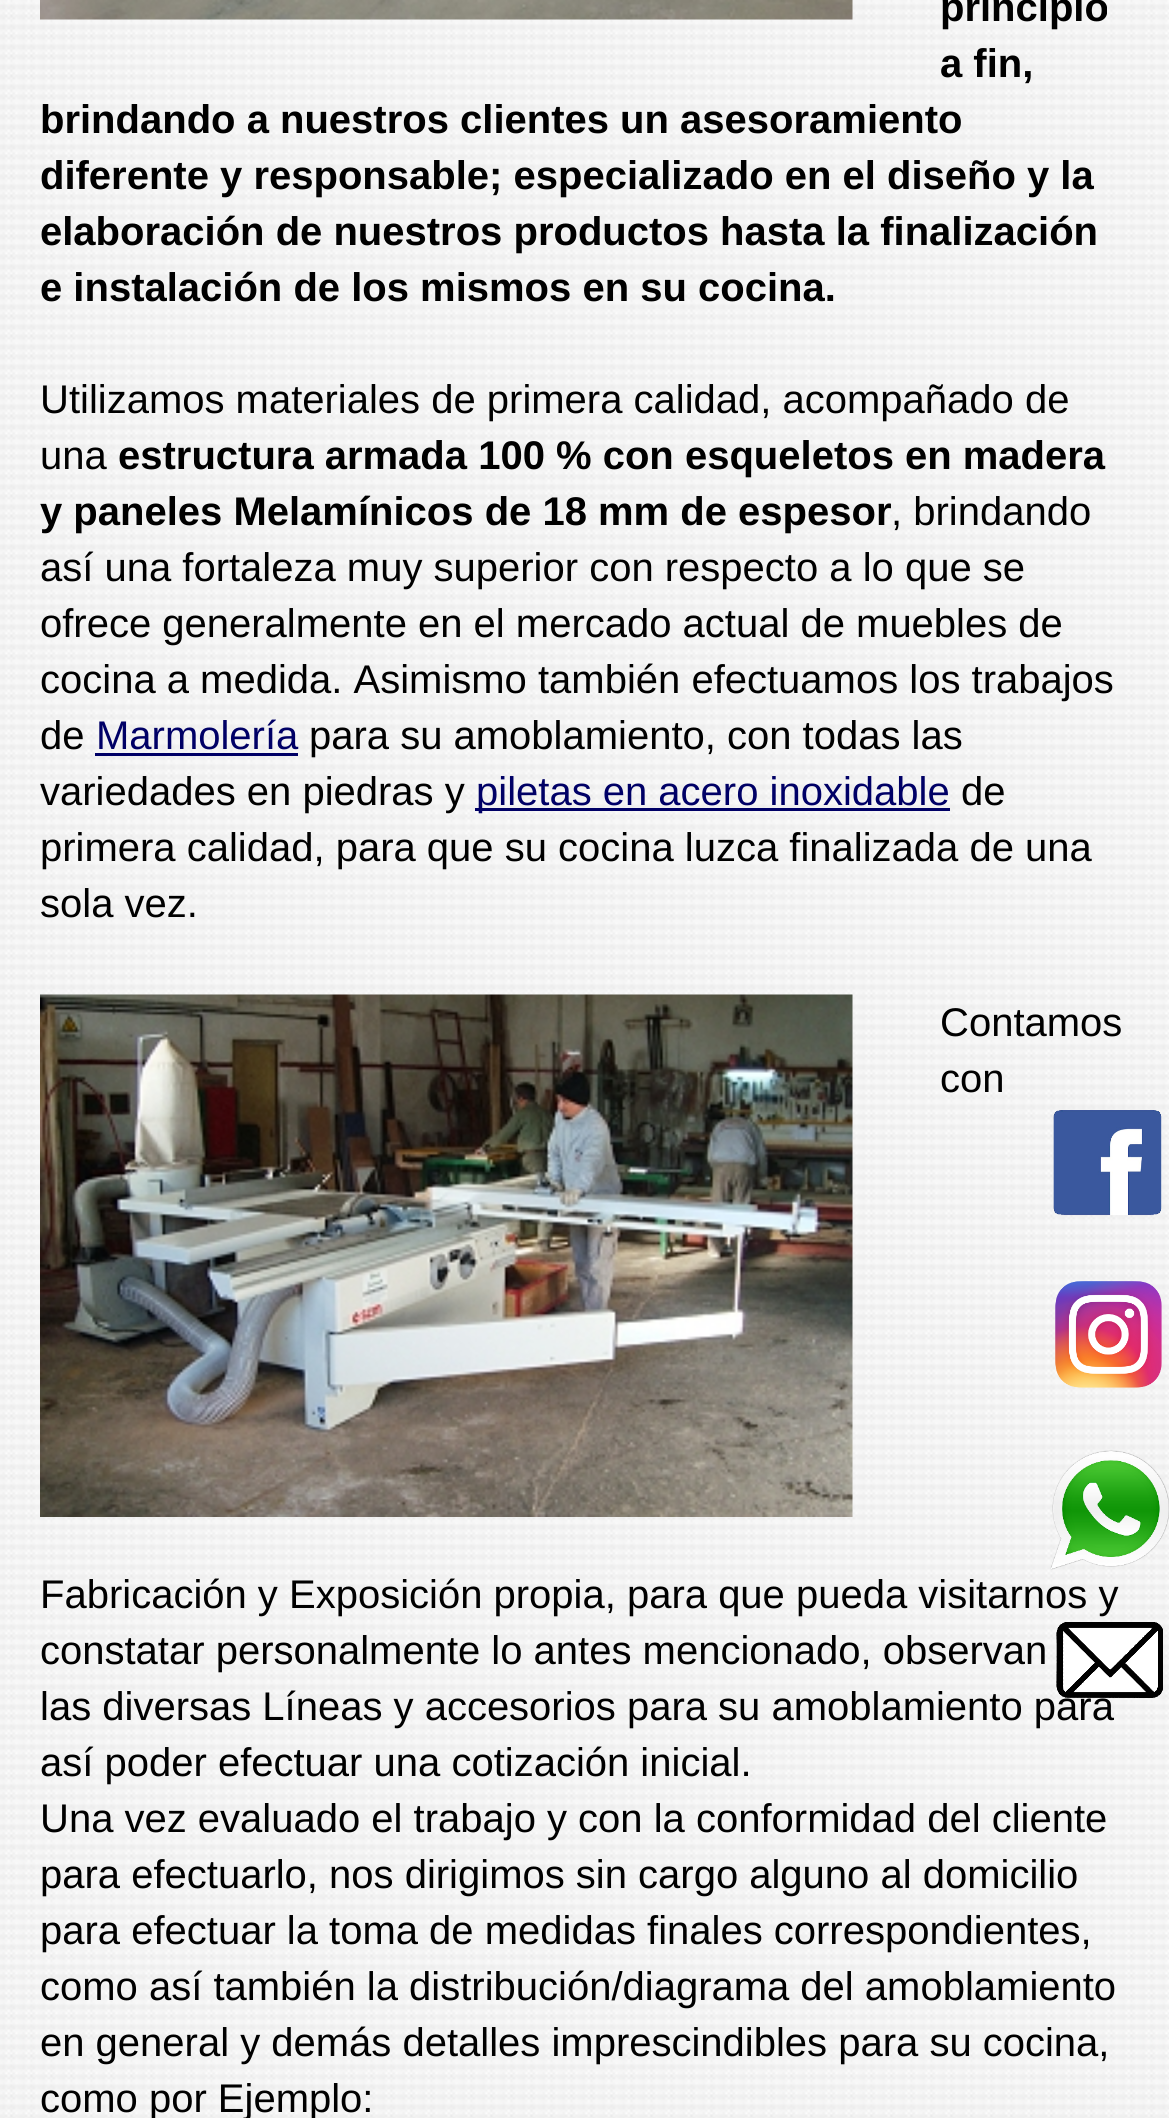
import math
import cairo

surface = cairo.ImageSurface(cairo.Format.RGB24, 1169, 2118)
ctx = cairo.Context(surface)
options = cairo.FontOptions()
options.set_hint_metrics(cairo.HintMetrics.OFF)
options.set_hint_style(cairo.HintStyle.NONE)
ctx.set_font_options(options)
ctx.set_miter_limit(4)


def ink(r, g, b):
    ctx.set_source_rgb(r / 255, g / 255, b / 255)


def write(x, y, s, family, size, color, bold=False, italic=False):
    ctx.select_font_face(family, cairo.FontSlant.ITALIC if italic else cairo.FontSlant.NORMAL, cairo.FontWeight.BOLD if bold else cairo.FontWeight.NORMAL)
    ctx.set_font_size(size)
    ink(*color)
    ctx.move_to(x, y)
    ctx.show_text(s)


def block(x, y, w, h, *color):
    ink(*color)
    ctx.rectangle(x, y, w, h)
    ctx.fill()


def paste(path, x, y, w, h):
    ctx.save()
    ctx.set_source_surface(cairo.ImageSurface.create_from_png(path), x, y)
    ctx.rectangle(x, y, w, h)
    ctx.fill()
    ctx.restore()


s1 = dict(family="Liberation Sans", size=40, color=(0, 0, 0), bold=True)
s2 = dict(family="Liberation Sans", size=40, color=(0, 0, 0))
s3 = dict(family="Liberation Sans", size=40, color=(0, 0, 102))

ink(255, 255, 255)
ctx.paint()
paste("pic1.png", 0, 0, 1169, 2118)
paste("pic2.png", 40, 0, 813, 20)
write(940, 21, "principio", **s1)
write(940, 77, "a fin,", **s1)
write(40, 133, "brindando a nuestros clientes un asesoramiento", **s1)
write(40, 189, "diferente y responsable; especializado en el diseño y la", **s1)
write(40, 245, "elaboración de nuestros productos hasta la finalización", **s1)
write(40, 301, "e instalación de los mismos en su cocina.", **s1)
write(40, 413, "Utilizamos materiales de primera calidad, acompañado de", **s2)
write(40, 469, "una", **s2)
write(118, 469, "estructura armada 100 % con esqueletos en madera", **s1)
write(40, 525, "y paneles Melamínicos de 18 mm de espesor", **s1)
write(891, 525, ", brindando", **s2)
write(40, 581, "así una fortaleza muy superior con respecto a lo que se", **s2)
write(40, 637, "ofrece generalmente en el mercado actual de muebles de", **s2)
write(40, 693, "cocina a medida. Asimismo también efectuamos los trabajos", **s2)
write(40, 749, "de", **s2)
write(96, 749, "Marmolería", **s3)
block(95, 753, 203, 3, 0, 0, 102)
write(309, 749, "para su amoblamiento, con todas las", **s2)
write(40, 805, "variedades en piedras y", **s2)
block(475, 808, 475, 3, 0, 0, 102)
write(476, 805, "piletas en acero inoxidable", **s3)
write(961, 805, "de", **s2)
write(40, 861, "primera calidad, para que su cocina luzca finalizada de una", **s2)
write(40, 917, "sola vez.", **s2)
paste("pic3.png", 40, 994, 813, 523)
write(940, 1036, "Contamos", **s2)
write(940, 1092, "con", **s2)
write(40, 1608, "Fabricación y Exposición propia, para que pueda visitarnos y", **s2)
write(40, 1664, "constatar personalmente lo antes mencionado, observan", **s2)
write(40, 1720, "las diversas Líneas y accesorios para su amoblamiento para", **s2)
write(40, 1776, "así poder efectuar una cotización inicial.", **s2)
write(40, 1832, "Una vez evaluado el trabajo y con la conformidad del cliente", **s2)
write(40, 1888, "para efectuarlo, nos dirigimos sin cargo alguno al domicilio", **s2)
write(40, 1944, "para efectuar la toma de medidas finales correspondientes,", **s2)
write(40, 2000, "como así también la distribución/diagrama del amoblamiento", **s2)
write(40, 2056, "en general y demás detalles imprescindibles para su cocina,", **s2)
write(40, 2112, "como por Ejemplo:", **s2)
paste("pic4.png", 1053, 1110, 109, 106)
paste("pic5.png", 1055, 1281, 107, 107)
paste("pic6.png", 1050, 1450, 119, 120)
paste("pic7.png", 1056, 1622, 107, 76)
surface.write_to_png("screenshot.png")
